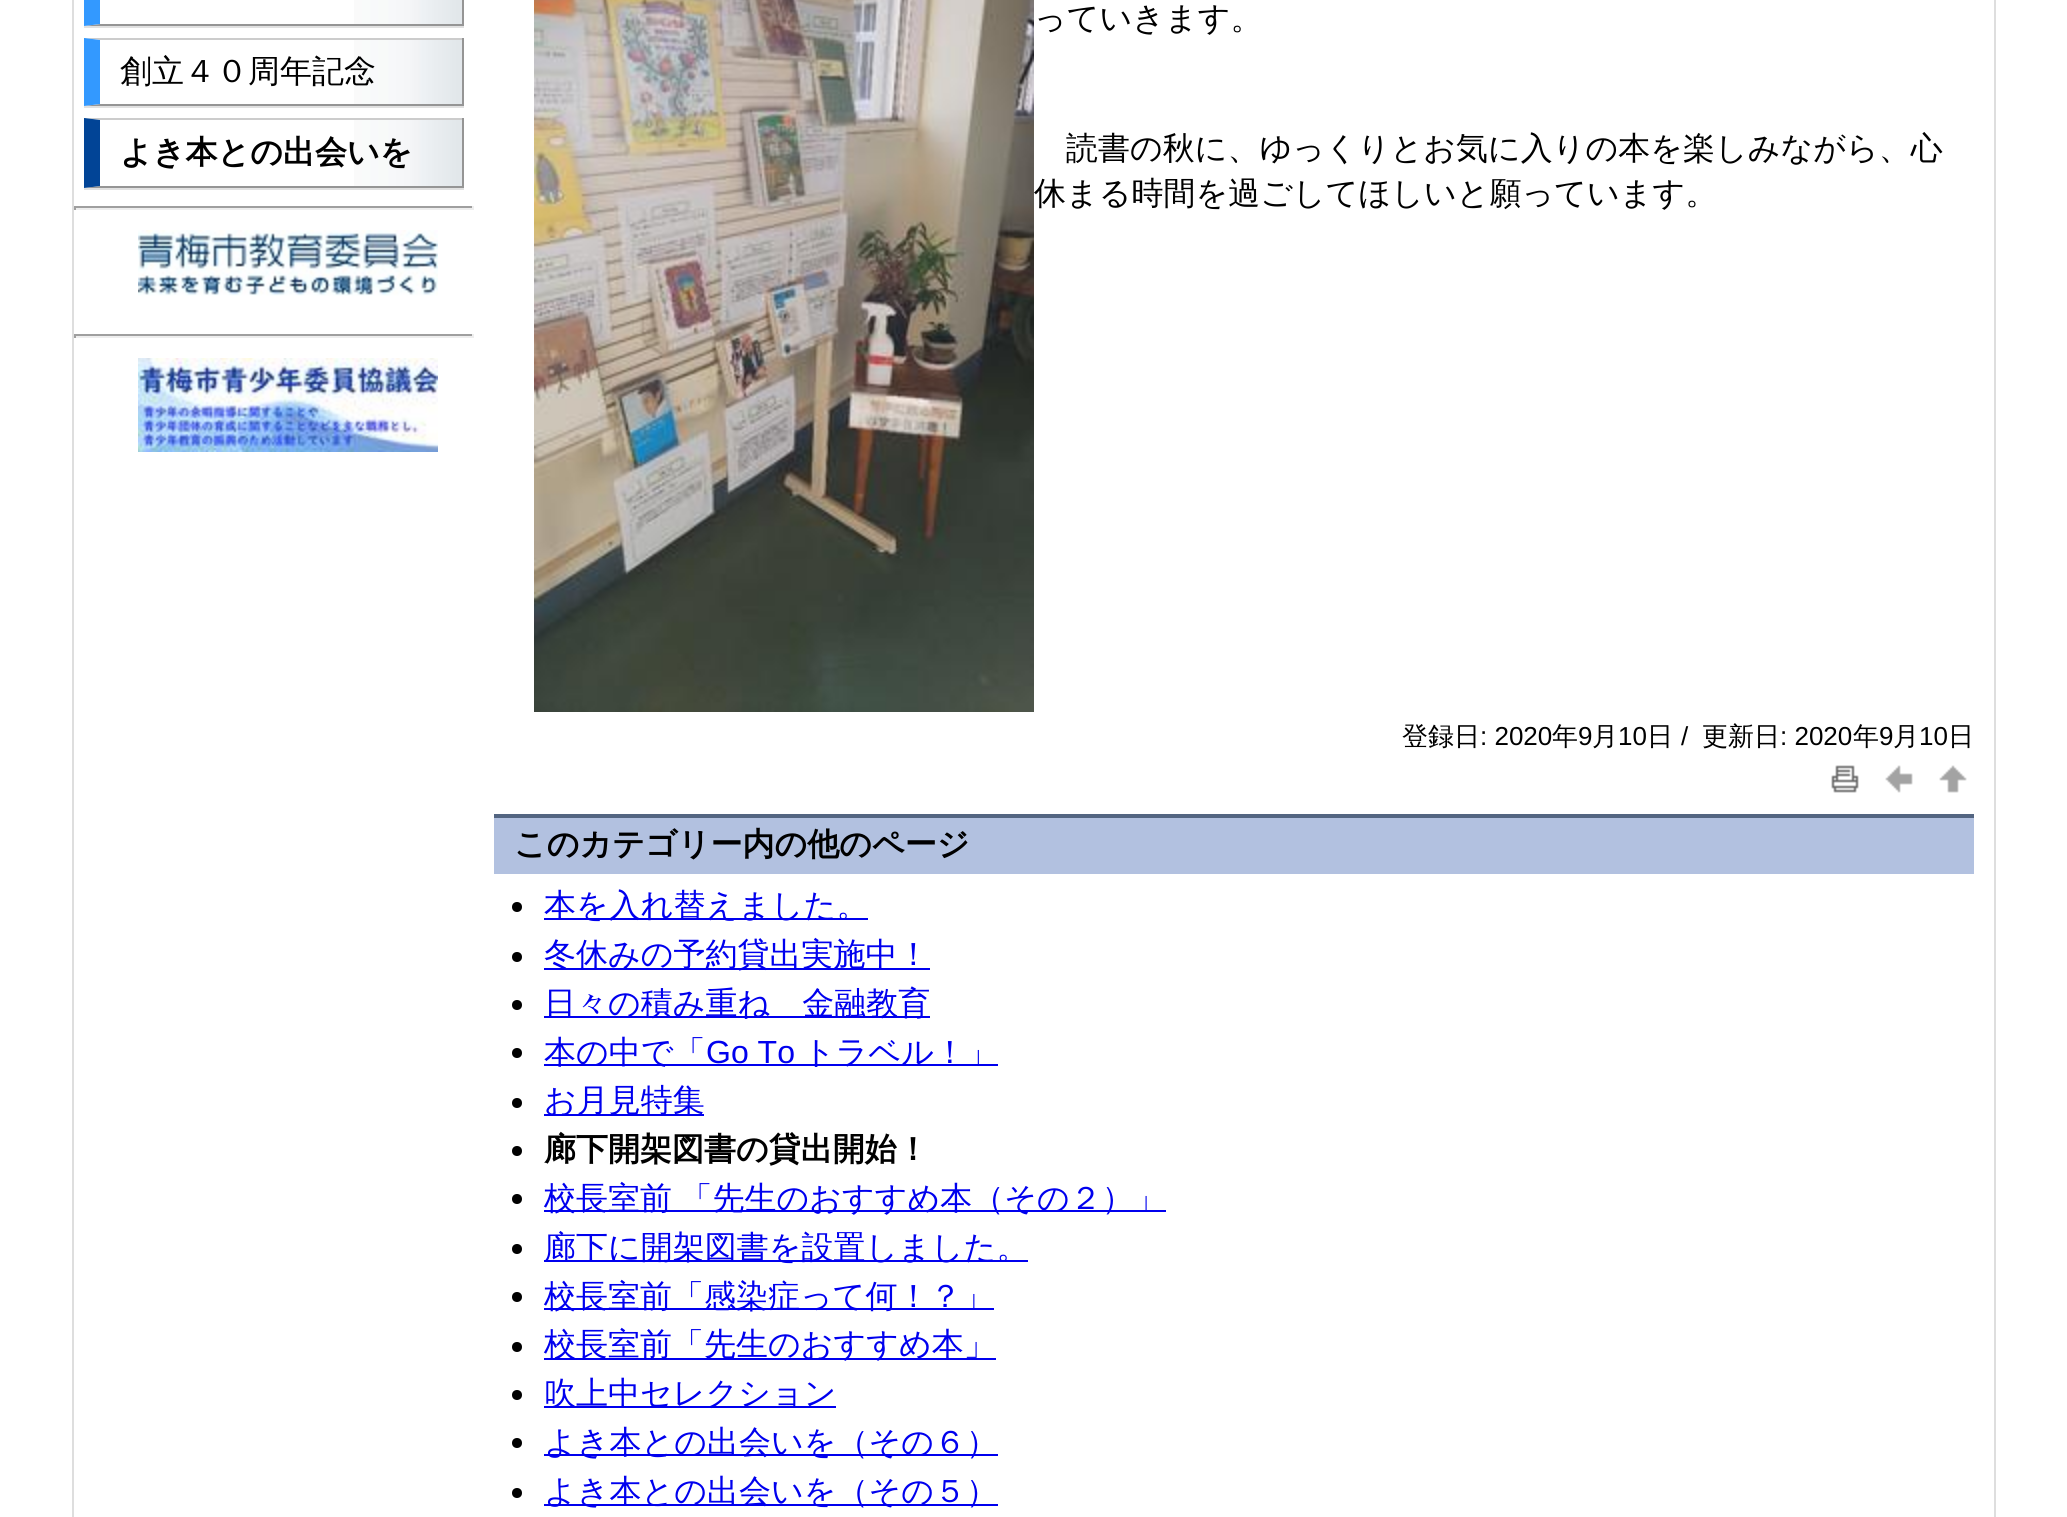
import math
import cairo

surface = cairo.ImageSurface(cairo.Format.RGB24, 2067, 1517)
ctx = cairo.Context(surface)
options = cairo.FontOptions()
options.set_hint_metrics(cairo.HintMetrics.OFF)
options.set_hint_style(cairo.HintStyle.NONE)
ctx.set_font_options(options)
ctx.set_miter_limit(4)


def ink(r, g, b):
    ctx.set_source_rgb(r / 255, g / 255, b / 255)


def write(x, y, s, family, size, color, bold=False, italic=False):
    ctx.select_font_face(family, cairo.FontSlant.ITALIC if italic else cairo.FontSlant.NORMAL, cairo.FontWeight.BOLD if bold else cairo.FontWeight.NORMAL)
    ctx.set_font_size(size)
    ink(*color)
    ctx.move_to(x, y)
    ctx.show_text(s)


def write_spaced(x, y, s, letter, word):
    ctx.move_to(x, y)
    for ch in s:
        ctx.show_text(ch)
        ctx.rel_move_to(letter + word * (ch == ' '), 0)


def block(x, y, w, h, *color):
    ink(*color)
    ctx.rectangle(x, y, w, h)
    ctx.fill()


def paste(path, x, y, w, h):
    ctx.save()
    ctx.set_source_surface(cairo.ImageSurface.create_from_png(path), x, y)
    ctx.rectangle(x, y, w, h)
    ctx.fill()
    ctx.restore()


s1 = dict(family="WenQuanYi Zen Hei Medium", size=32, color=(0, 0, 0))
s2 = dict(family="WenQuanYi Zen Hei", size=32, color=(0, 0, 0), bold=True)
s3 = dict(family="WenQuanYi Zen Hei Medium", size=26, color=(0, 0, 0))
s4 = dict(family="Liberation Sans", size=26, color=(0, 0, 0))
s5 = dict(family="WenQuanYi Zen Hei Medium", size=32, color=(0, 0, 238))
s6 = dict(family="Liberation Sans", size=32, color=(0, 0, 238))

ink(255, 255, 255)
ctx.paint()
block(1994, 0, 2, 1517, 222, 222, 222)
block(72, 0, 2, 1517, 222, 222, 222)
paste("pic1.png", 354, 0, 108, 24)
block(84, 26, 380, 2, 225, 225, 225)
block(462, 0, 2, 26, 149, 149, 149)
ctx.new_path()
ctx.move_to(464, 26)
ctx.line_to(84, 26)
ctx.line_to(100, 24)
ctx.line_to(462, 24)
ctx.close_path()
ctx.fill()
ink(51, 153, 255)
ctx.new_path()
ctx.move_to(84, 26)
ctx.line_to(84, -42)
ctx.line_to(100, -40)
ctx.line_to(100, 24)
ctx.close_path()
ctx.fill()
paste("pic2.png", 354, 40, 108, 64)
block(84, 106, 380, 2, 225, 225, 225)
ink(204, 204, 204)
ctx.new_path()
ctx.move_to(84, 38)
ctx.line_to(464, 38)
ctx.line_to(462, 40)
ctx.line_to(100, 40)
ctx.close_path()
ctx.fill()
block(462, 38, 2, 68, 149, 149, 149)
ctx.new_path()
ctx.move_to(464, 106)
ctx.line_to(84, 106)
ctx.line_to(100, 104)
ctx.line_to(462, 104)
ctx.close_path()
ctx.fill()
ink(51, 153, 255)
ctx.new_path()
ctx.move_to(84, 106)
ctx.line_to(84, 38)
ctx.line_to(100, 40)
ctx.line_to(100, 104)
ctx.close_path()
ctx.fill()
write(120, 82, "創立４０周年記念", **s1)
paste("pic3.png", 354, 120, 108, 66)
block(84, 188, 380, 2, 225, 225, 225)
ink(204, 204, 204)
ctx.new_path()
ctx.move_to(84, 118)
ctx.line_to(464, 118)
ctx.line_to(462, 120)
ctx.line_to(100, 120)
ctx.close_path()
ctx.fill()
block(462, 118, 2, 70, 149, 149, 149)
ctx.new_path()
ctx.move_to(464, 188)
ctx.line_to(84, 188)
ctx.line_to(100, 186)
ctx.line_to(462, 186)
ctx.close_path()
ctx.fill()
ink(1, 68, 150)
ctx.new_path()
ctx.move_to(84, 188)
ctx.line_to(84, 118)
ctx.line_to(100, 120)
ctx.line_to(100, 186)
ctx.close_path()
ctx.fill()
write(120, 163, "よき本との出会いを", **s2)
block(74, 206, 400, 2, 159, 159, 159)
block(472, 206, 2, 4, 238, 238, 238)
block(74, 208, 400, 2, 238, 238, 238)
block(74, 206, 2, 4, 159, 159, 159)
paste("pic4.png", 138, 230, 300, 66)
block(74, 334, 400, 2, 159, 159, 159)
block(472, 334, 2, 4, 238, 238, 238)
block(74, 336, 400, 2, 238, 238, 238)
block(74, 334, 2, 4, 159, 159, 159)
paste("pic5.png", 138, 358, 300, 94)
paste("pic6.png", 534, 0, 500, 712)
write(1034, 29, "っていきます。", **s1)
write(1066, 159, "読書の秋に、ゆっくりとお気に入りの本を楽しみながら、心", **s1)
write(1034, 204, "休まる時間を過ごしてほしいと願っています。", **s1)
write(1402, 745, "登録日", **s3)
write(1480, 745, ": 2020", **s4)
write(1552, 745, "年", **s3)
write(1578, 745, "9", **s4)
write(1592, 745, "月", **s3)
write(1618, 745, "10", **s4)
write(1647, 745, "日", **s3)
write(1681, 745, "/", **s4)
write(1702, 745, "更新日", **s3)
write(1780, 745, ": 2020", **s4)
write(1853, 745, "年", **s3)
write(1879, 745, "9", **s4)
write(1893, 745, "月", **s3)
write(1919, 745, "10", **s4)
write(1948, 745, "日", **s3)
paste("pic7.png", 1831, 765, 28, 28)
paste("pic8.png", 1885, 765, 28, 28)
paste("pic9.png", 1939, 765, 28, 28)
block(494, 814, 1480, 4, 83, 101, 129)
block(494, 818, 1480, 56, 178, 193, 224)
write(514, 855, "このカテゴリー内の他のページ", **s2)
ctx.new_path()
ctx.arc(517, 907, 5, 0, 2 * math.pi)
ctx.fill()
block(544, 918, 324, 2, 0, 0, 238)
write(544, 916, "本を入れ替えました。", **s5)
ink(0, 0, 0)
ctx.new_path()
ctx.arc(517, 957, 5, 0, 2 * math.pi)
ctx.fill()
block(544, 968, 386, 2, 0, 0, 238)
write(544, 965, "冬休みの予約貸出実施中！", **s5)
ink(0, 0, 0)
ctx.new_path()
ctx.arc(517, 1005, 5, 0, 2 * math.pi)
ctx.fill()
block(544, 1016, 386, 2, 0, 0, 238)
write(544, 1014, "日々の積み重ね　金融教育", **s5)
ink(0, 0, 0)
ctx.new_path()
ctx.arc(517, 1053, 5, 0, 2 * math.pi)
ctx.fill()
block(544, 1064, 454, 2, 0, 0, 238)
write(544, 1063, "本の中で「", **s5)
write(706, 1063, "Go To", **s6)
write(803, 1063, "トラベル！」", **s5)
ink(0, 0, 0)
ctx.new_path()
ctx.arc(517, 1103, 5, 0, 2 * math.pi)
ctx.fill()
block(544, 1114, 160, 2, 0, 0, 238)
write(544, 1111, "お月見特集", **s5)
ink(0, 0, 0)
ctx.new_path()
ctx.arc(517, 1151, 5, 0, 2 * math.pi)
ctx.fill()
write(544, 1160, "廊下開架図書の貸出開始！", **s2)
ctx.new_path()
ctx.arc(517, 1199, 5, 0, 2 * math.pi)
ctx.fill()
block(544, 1210, 622, 2, 0, 0, 238)
ctx.select_font_face("WenQuanYi Zen Hei Medium")
write_spaced(544, 1209, "校長室前 「先生のおすすめ本（その２）」", 0, -1)
ink(0, 0, 0)
ctx.new_path()
ctx.arc(517, 1249, 5, 0, 2 * math.pi)
ctx.fill()
block(544, 1260, 484, 2, 0, 0, 238)
write(544, 1258, "廊下に開架図書を設置しました。", **s5)
ink(0, 0, 0)
ctx.new_path()
ctx.arc(517, 1297, 5, 0, 2 * math.pi)
ctx.fill()
block(544, 1308, 450, 2, 0, 0, 238)
write(544, 1307, "校長室前「感染症って何！？」", **s5)
ink(0, 0, 0)
ctx.new_path()
ctx.arc(517, 1347, 5, 0, 2 * math.pi)
ctx.fill()
block(544, 1358, 452, 2, 0, 0, 238)
write(544, 1355, "校長室前「先生のおすすめ本」", **s5)
ink(0, 0, 0)
ctx.new_path()
ctx.arc(517, 1395, 5, 0, 2 * math.pi)
ctx.fill()
block(544, 1406, 292, 2, 0, 0, 238)
write(544, 1404, "吹上中セレクション", **s5)
ink(0, 0, 0)
ctx.new_path()
ctx.arc(517, 1443, 5, 0, 2 * math.pi)
ctx.fill()
block(544, 1454, 454, 2, 0, 0, 238)
write(544, 1453, "よき本との出会いを（その６）", **s5)
ink(0, 0, 0)
ctx.new_path()
ctx.arc(517, 1493, 5, 0, 2 * math.pi)
ctx.fill()
block(544, 1504, 454, 2, 0, 0, 238)
write(544, 1502, "よき本との出会いを（その５）", **s5)
surface.write_to_png("screenshot.png")
